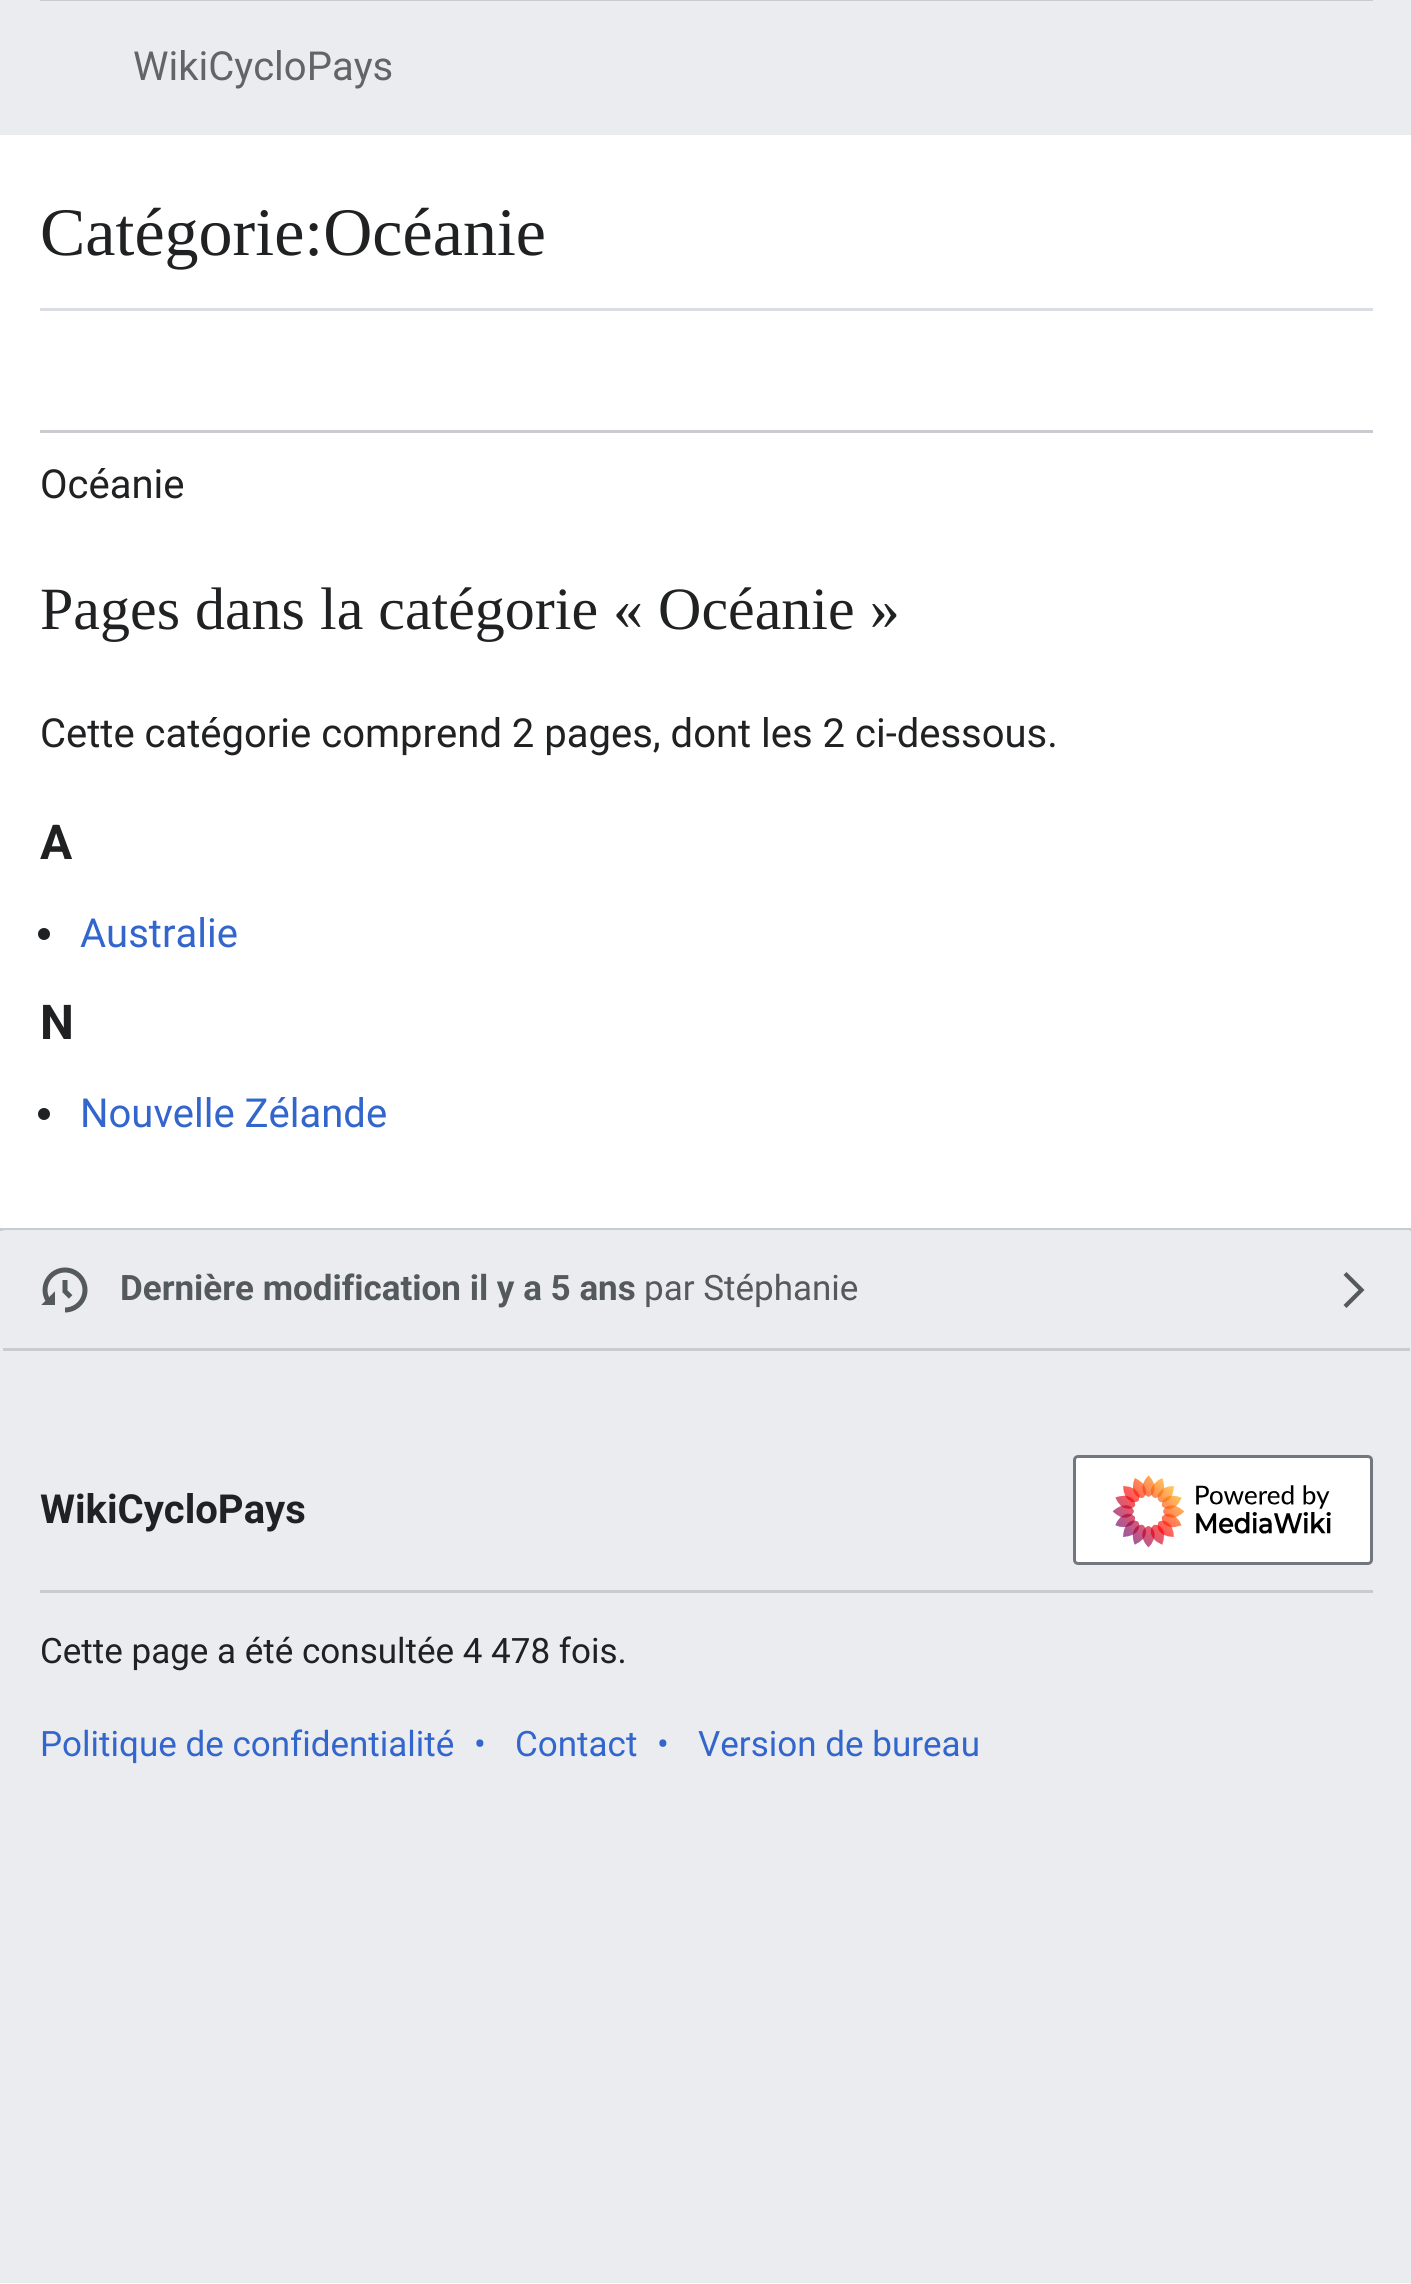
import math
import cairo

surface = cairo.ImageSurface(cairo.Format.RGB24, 1411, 2284)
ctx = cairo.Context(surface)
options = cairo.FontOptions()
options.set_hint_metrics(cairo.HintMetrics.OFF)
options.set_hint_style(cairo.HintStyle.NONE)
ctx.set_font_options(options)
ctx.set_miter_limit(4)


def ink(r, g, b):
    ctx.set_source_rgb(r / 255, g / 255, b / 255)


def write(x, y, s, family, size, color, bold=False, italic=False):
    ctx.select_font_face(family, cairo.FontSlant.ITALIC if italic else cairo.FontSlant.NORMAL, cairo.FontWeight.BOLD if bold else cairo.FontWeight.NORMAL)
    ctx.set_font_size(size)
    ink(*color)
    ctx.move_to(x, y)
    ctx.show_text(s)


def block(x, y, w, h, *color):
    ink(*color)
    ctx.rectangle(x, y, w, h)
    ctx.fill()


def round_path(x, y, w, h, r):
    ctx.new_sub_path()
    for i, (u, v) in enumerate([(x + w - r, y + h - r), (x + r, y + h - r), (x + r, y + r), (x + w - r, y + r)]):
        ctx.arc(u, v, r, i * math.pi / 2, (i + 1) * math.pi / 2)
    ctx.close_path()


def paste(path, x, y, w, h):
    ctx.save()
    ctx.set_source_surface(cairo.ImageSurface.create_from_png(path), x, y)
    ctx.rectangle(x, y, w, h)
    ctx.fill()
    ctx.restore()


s1 = dict(family="Roboto", size=40, color=(99, 100, 102))
s2 = dict(family="Liberation Serif", size=68, color=(32, 33, 34))
s3 = dict(family="Roboto", size=40, color=(32, 33, 34))
s4 = dict(family="Liberation Serif", size=60, color=(32, 33, 34))
s5 = dict(family="Roboto", size=48, color=(32, 33, 34), bold=True)
s6 = dict(family="Roboto", size=40, color=(51, 102, 204))
s7 = dict(family="Roboto", size=35, color=(84, 89, 93), bold=True)
s8 = dict(family="Roboto", size=35, color=(84, 89, 93))
s9 = dict(family="Roboto", size=40, color=(32, 33, 34), bold=True)
s10 = dict(family="Roboto", size=35, color=(32, 33, 34))
s11 = dict(family="Roboto", size=35, color=(51, 102, 204))

ink(255, 255, 255)
ctx.paint()
block(0, 0, 1411, 2283, 234, 236, 240)
block(40, 0, 1333, 1, 200, 204, 209)
write(133, 80, "WikiCycloPays", **s1)
block(0, 135, 1411, 1093, 255, 255, 255)
write(40, 255, "Catégorie:Océanie", **s2)
block(40, 308, 1333, 3, 218, 221, 227)
block(40, 430, 1333, 3, 200, 204, 209)
write(40, 498, "Océanie", **s3)
write(40, 629, "Pages dans la catégorie « Océanie »", **s4)
write(40, 747, "Cette catégorie comprend 2 pages, dont les 2 ci-dessous.", **s3)
write(40, 859, "A", **s5)
ctx.new_path()
ctx.arc(44, 934, 6, 0, 2 * math.pi)
ctx.fill()
write(80, 947, "Australie", **s6)
write(40, 1039, "N", **s5)
ctx.new_path()
ctx.arc(44, 1114, 6, 0, 2 * math.pi)
ctx.fill()
write(80, 1127, "Nouvelle Zélande", **s6)
block(0, 1228, 1411, 3, 200, 204, 209)
ink(234, 236, 240)
round_path(0, 1230, 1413, 120, 5)
ctx.fill()
block(3, 1348, 1407, 3, 200, 204, 209)
paste("pic1.png", 41, 1267, 47, 46)
write(120, 1300, "Dernière modification il y a 5 ans", **s7)
write(644, 1300, "par Stéphanie", **s8)
ctx.new_path()
ctx.move_to(1346.5, 1272)
ctx.line_to(1343.5, 1275)
ctx.line_to(1358.5, 1290)
ctx.line_to(1343.5, 1305)
ctx.line_to(1346.5, 1308)
ctx.line_to(1364.5, 1290)
ctx.close_path()
ctx.fill()
block(40, 1590, 1333, 3, 200, 204, 209)
write(40, 1523, "WikiCycloPays", **s9)
ink(255, 255, 255)
round_path(1074.5, 1456.5, 297, 107, 3.5)
ctx.fill_preserve()
ink(114, 119, 125)
ctx.set_line_width(3)
ctx.stroke()
paste("pic2.png", 1113, 1475, 218, 73)
write(40, 1663, "Cette page a été consultée 4 478 fois.", **s10)
write(40, 1756, "Politique de confidentialité", **s11)
write(474, 1756, "•", **s11)
write(515, 1756, "Contact", **s11)
write(657, 1756, "•", **s11)
write(698, 1756, "Version de bureau", **s11)
surface.write_to_png("screenshot.png")
